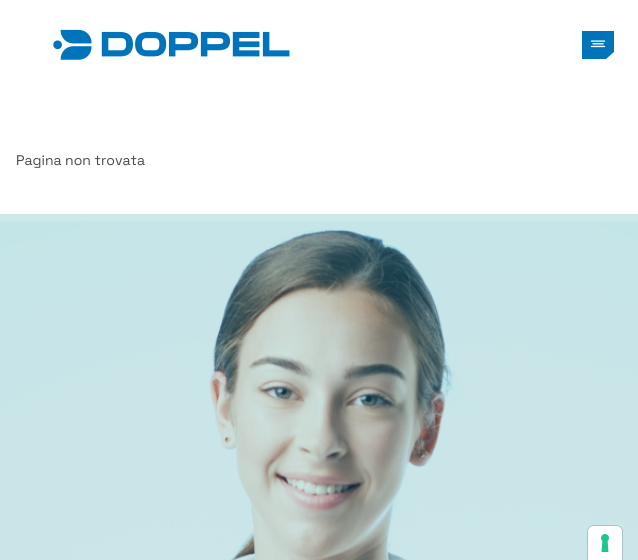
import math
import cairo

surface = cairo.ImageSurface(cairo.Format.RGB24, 638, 560)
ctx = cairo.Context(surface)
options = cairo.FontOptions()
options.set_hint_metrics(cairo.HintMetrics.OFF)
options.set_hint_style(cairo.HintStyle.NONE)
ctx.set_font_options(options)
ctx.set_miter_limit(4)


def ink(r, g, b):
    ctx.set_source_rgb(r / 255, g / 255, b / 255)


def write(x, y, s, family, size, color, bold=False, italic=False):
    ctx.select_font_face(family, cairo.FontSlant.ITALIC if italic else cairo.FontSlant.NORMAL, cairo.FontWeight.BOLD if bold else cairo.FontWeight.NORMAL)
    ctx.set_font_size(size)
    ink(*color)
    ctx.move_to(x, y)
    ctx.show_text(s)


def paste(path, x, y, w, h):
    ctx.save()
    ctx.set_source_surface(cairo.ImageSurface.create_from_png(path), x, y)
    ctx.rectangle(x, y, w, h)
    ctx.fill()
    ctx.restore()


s1 = dict(family="Space Grotesk", size=14, color=(73, 73, 73))

ink(255, 255, 255)
ctx.paint()
paste("pic1.png", 53, 29, 237, 31)
ink(0, 116, 187)
ctx.new_path()
ctx.move_to(582, 31)
ctx.line_to(582, 59)
ctx.line_to(606, 59)
ctx.line_to(614, 52)
ctx.line_to(614, 31)
ctx.line_to(599.5, 31)
ctx.close_path()
ctx.fill()
paste("pic2.png", 590, 40, 16, 8)
write(16, 165, "Pagina non trovata", **s1)
paste("pic3.png", 0, 214, 638, 346)
ctx.new_path()
ctx.move_to(594, 525.5)
ctx.line_to(616, 525.5)
ctx.curve_to(619.5, 525.5, 622.5, 528.5, 622.5, 532)
ctx.line_to(622.5, 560.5)
ctx.line_to(587.5, 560.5)
ctx.line_to(587.5, 532)
ctx.curve_to(587.5, 528.5, 590.5, 525.5, 594, 525.5)
ctx.close_path()
ink(172, 195, 197)
ctx.set_line_width(1)
ctx.stroke()
ink(255, 255, 255)
ctx.new_path()
ctx.move_to(594, 526)
ctx.line_to(616, 526)
ctx.curve_to(619.5, 526, 622, 528.5, 622, 532)
ctx.line_to(622, 560)
ctx.line_to(588, 560)
ctx.line_to(588, 532)
ctx.curve_to(588, 528.5, 590.5, 526, 594, 526)
ctx.close_path()
ctx.fill()
paste("pic4.png", 601, 534, 8, 18)
surface.write_to_png("screenshot.png")
